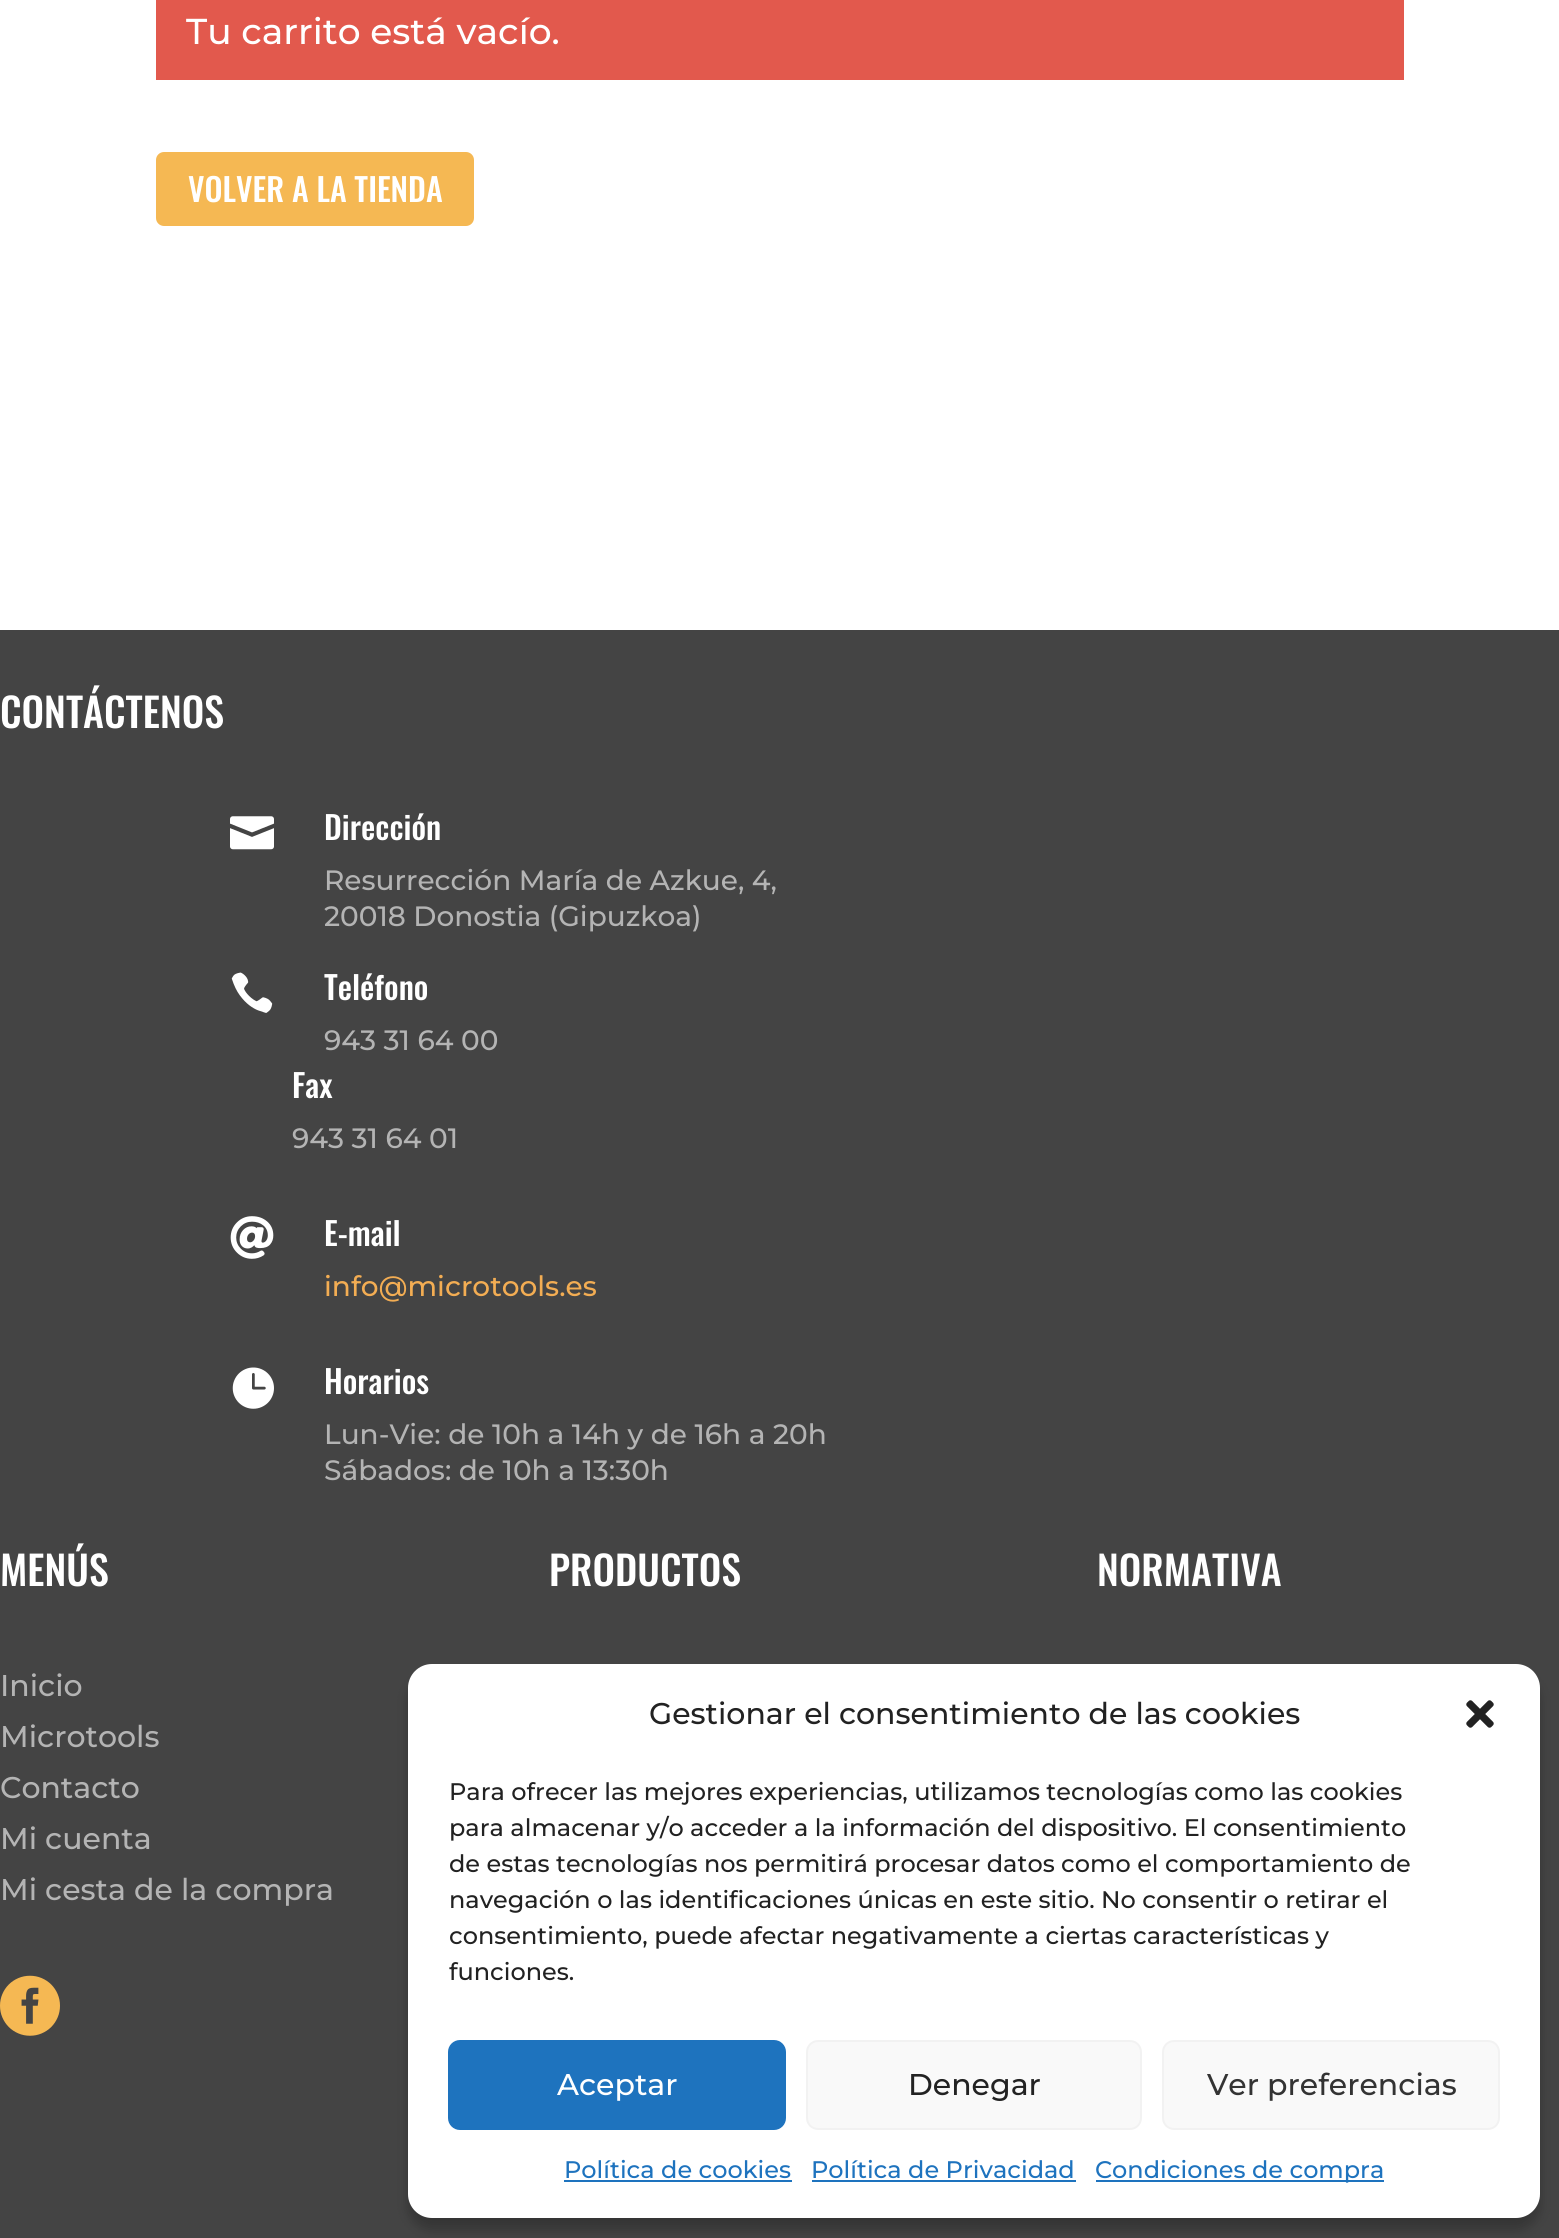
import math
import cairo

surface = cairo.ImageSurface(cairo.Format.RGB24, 1559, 2238)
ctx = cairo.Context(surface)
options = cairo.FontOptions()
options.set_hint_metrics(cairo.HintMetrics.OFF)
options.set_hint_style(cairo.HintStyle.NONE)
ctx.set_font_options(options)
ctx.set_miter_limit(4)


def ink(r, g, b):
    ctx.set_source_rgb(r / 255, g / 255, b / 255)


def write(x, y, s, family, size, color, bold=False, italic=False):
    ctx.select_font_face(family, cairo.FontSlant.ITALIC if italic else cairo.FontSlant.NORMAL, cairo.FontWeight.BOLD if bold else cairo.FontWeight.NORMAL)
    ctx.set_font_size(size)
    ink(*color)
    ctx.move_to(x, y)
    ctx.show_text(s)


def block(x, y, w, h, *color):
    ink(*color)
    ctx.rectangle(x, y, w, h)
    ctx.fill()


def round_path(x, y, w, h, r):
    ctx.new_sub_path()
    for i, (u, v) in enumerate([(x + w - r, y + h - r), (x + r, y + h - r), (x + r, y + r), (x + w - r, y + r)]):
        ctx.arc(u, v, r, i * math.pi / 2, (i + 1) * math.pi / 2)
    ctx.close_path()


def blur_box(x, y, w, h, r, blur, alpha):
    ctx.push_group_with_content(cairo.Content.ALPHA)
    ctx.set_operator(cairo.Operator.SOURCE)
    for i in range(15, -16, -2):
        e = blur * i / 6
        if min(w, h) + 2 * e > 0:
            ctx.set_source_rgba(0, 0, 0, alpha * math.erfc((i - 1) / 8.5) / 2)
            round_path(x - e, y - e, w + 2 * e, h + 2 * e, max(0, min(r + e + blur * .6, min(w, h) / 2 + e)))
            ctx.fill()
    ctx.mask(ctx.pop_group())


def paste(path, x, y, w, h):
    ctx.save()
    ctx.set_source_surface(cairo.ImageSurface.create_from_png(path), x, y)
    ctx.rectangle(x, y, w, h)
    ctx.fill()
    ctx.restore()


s1 = dict(family="Montserrat Thin", size=36, color=(255, 255, 255))
s2 = dict(family="Oswald Medium", size=32, color=(255, 255, 255))
s3 = dict(family="Oswald Medium", size=40, color=(255, 255, 255))
s4 = dict(family="Montserrat Thin", size=28, color=(180, 180, 180))
s5 = dict(family="Montserrat Thin", size=28, color=(243, 173, 83))
s6 = dict(family="Montserrat Thin", size=30, color=(180, 180, 180))
s7 = dict(family="Montserrat Thin", size=30, color=(34, 34, 34))
s8 = dict(family="Montserrat Thin", size=24, color=(34, 34, 34))
s9 = dict(family="Montserrat Thin", size=30, color=(255, 255, 255))
s10 = dict(family="Montserrat Thin", size=30, color=(51, 51, 51))
s11 = dict(family="Montserrat Thin", size=24, color=(30, 115, 190))

ink(255, 255, 255)
ctx.paint()
block(156, 0, 1248, 80, 226, 89, 77)
write(186, 44, "Tu carrito está vacío.", **s1)
ink(245, 184, 83)
round_path(156, 152, 318, 74, 8)
ctx.fill()
write(188, 202, "VOLVER A LA TIENDA", **s2)
block(0, 630, 1559, 1608, 68, 68, 68)
write(0, 728, "CONTÁCTENOS", **s3)
paste("pic1.png", 230, 816, 44, 34)
write(324, 840, "Dirección", **s2)
write(324, 890, "Resurrección María de Azkue, 4,", **s4)
write(324, 926, "20018 Donostia (Gipuzkoa)", **s4)
paste("pic2.png", 231, 972, 42, 41)
write(324, 1000, "Teléfono", **s2)
write(324, 1050, "943 31 64 00", **s4)
write(292, 1098, "Fax", **s2)
write(292, 1148, "943 31 64 01", **s4)
paste("pic3.png", 230, 1216, 44, 43)
write(324, 1246, "E-mail", **s2)
write(324, 1296, "info@microtools.es", **s5)
paste("pic4.png", 232, 1367, 42, 42)
write(324, 1394, "Horarios", **s2)
write(324, 1444, "Lun-Vie: de 10h a 14h y de 16h a 20h", **s4)
write(324, 1480, "Sábados: de 10h a 13:30h", **s4)
write(0, 1586, "MENÚS", **s3)
write(0, 1696, "Inicio", **s6)
write(0, 1747, "Microtools", **s6)
write(0, 1798, "Contacto", **s6)
write(0, 1849, "Mi cuenta", **s6)
write(0, 1900, "Mi cesta de la compra", **s6)
paste("pic5.png", 0, 1975, 60, 61)
write(549, 1586, "PRODUCTOS", **s3)
write(1097, 1586, "NORMATIVA", **s3)
ink(0, 0, 0)
blur_box(408, 1676, 1132, 554, 24, 6, 0.23)
ink(255, 255, 255)
round_path(408, 1664, 1132, 554, 24)
ctx.fill()
write(649, 1724, "Gestionar el consentimiento de las cookies", **s7)
paste("pic6.png", 1466, 1700, 28, 28)
write(449, 1800, "Para ofrecer las mejores experiencias, utilizamos tecnologías como las cookies", **s8)
write(449, 1836, "para almacenar y/o acceder a la información del dispositivo. El consentimiento", **s8)
write(449, 1872, "de estas tecnologías nos permitirá procesar datos como el comportamiento de", **s8)
write(449, 1908, "navegación o las identificaciones únicas en este sitio. No consentir o retirar el", **s8)
write(449, 1944, "consentimiento, puede afectar negativamente a ciertas características y", **s8)
write(449, 1980, "funciones.", **s8)
ink(30, 115, 190)
round_path(449, 2041, 336, 88, 11)
ctx.fill_preserve()
ctx.stroke()
write(557, 2095, "Aceptar", **s9)
ink(249, 249, 249)
round_path(807, 2041, 334, 88, 11)
ctx.fill_preserve()
ink(242, 242, 242)
ctx.stroke()
write(908, 2095, "Denegar", **s7)
ink(249, 249, 249)
round_path(1163, 2041, 336, 88, 11)
ctx.fill_preserve()
ink(242, 242, 242)
ctx.stroke()
write(1207, 2095, "Ver preferencias", **s10)
write(564, 2178, "Política de cookies", **s11)
block(564, 2180, 228, 2, 30, 115, 190)
write(811, 2178, "Política de Privacidad", **s11)
block(812, 2180, 264, 2, 30, 115, 190)
block(1096, 2180, 288, 2, 30, 115, 190)
write(1095, 2178, "Condiciones de compra", **s11)
surface.write_to_png("screenshot.png")
